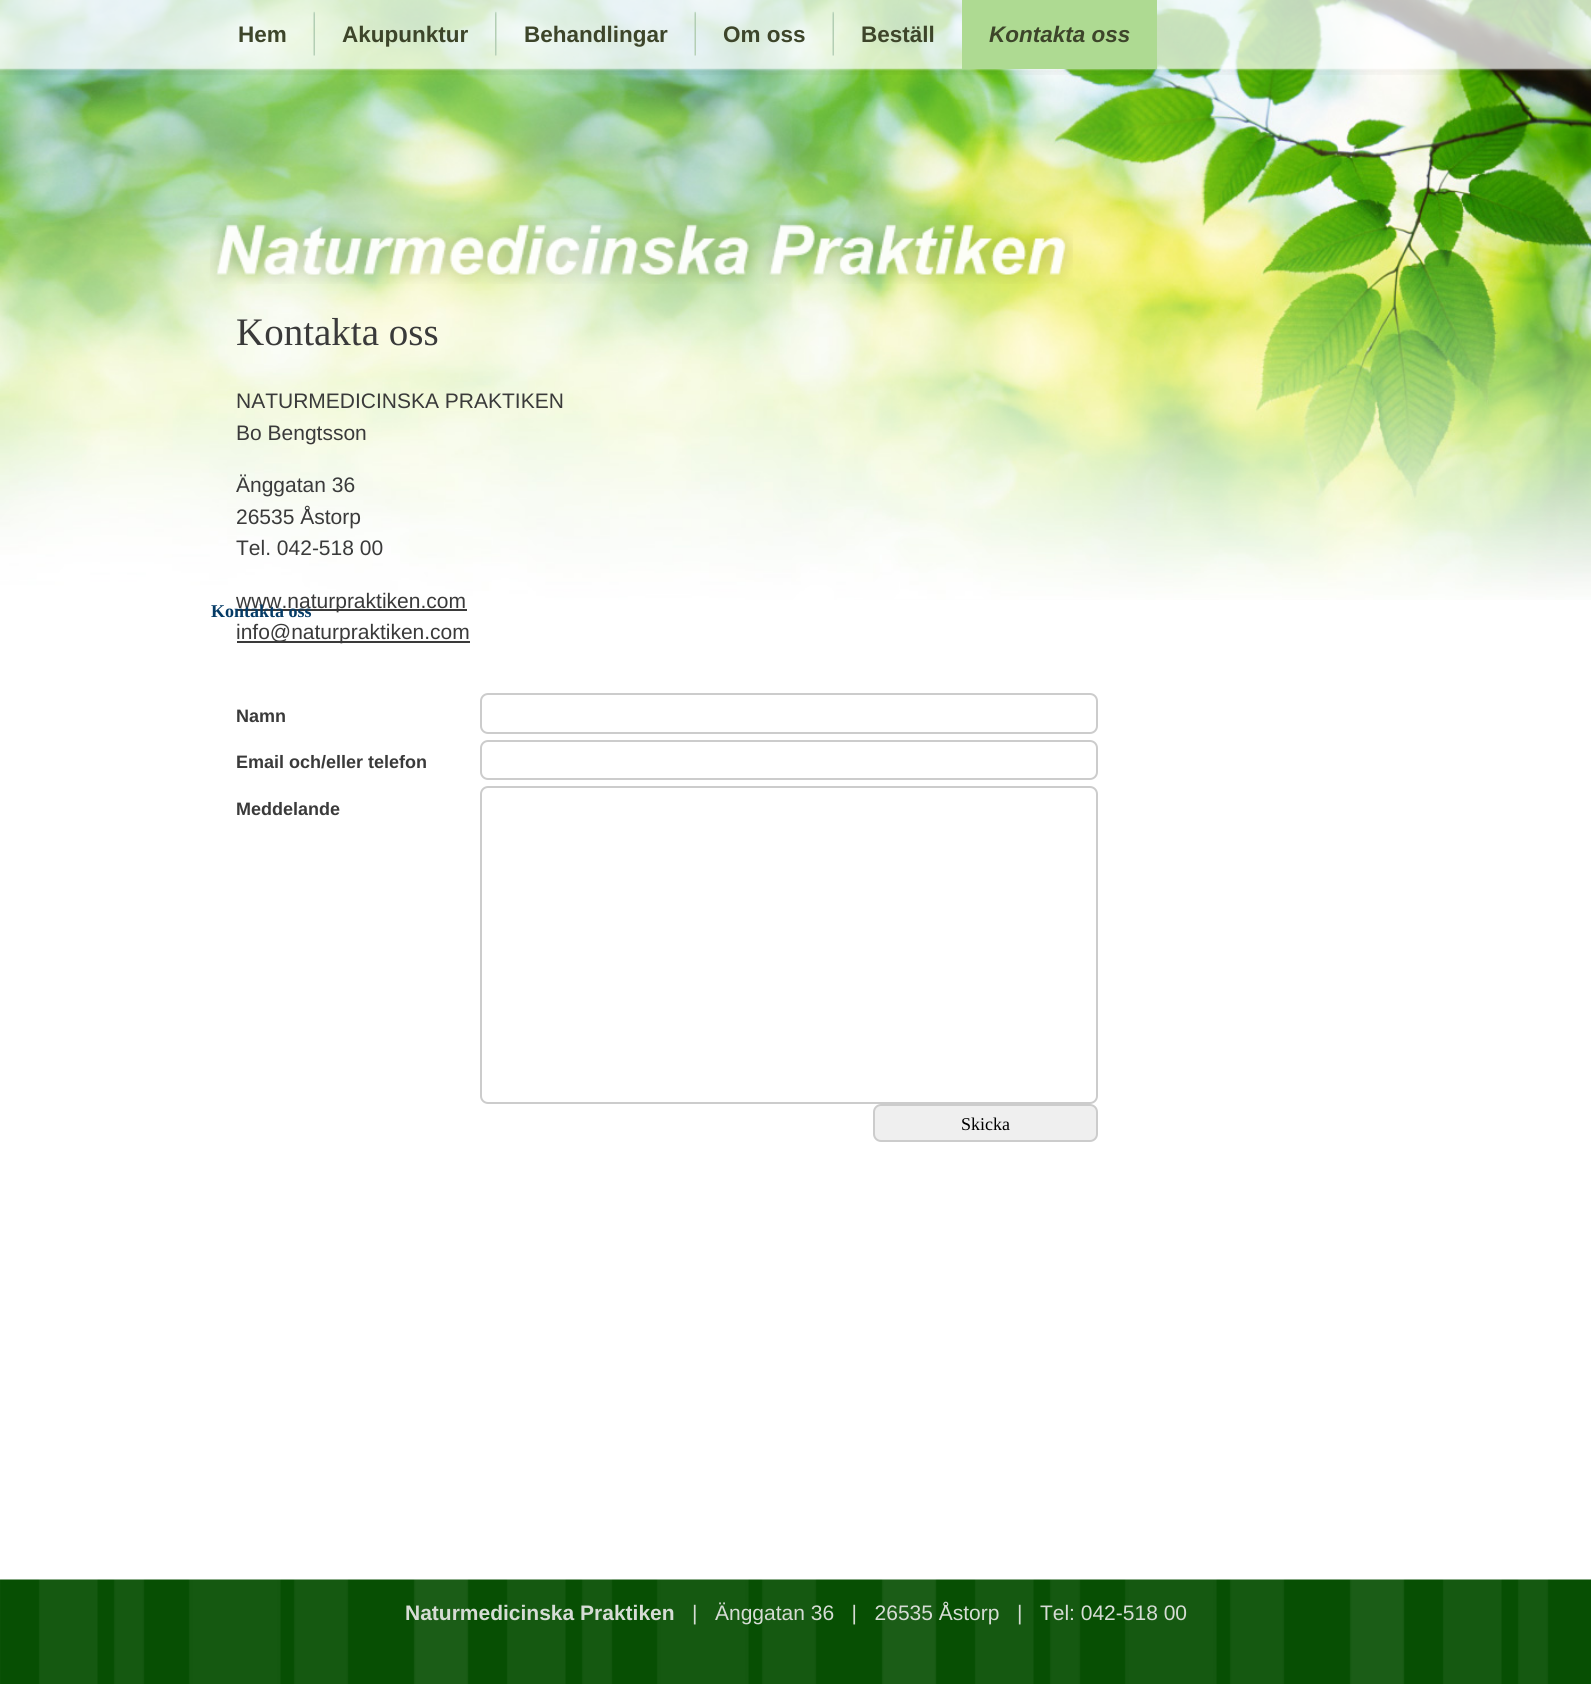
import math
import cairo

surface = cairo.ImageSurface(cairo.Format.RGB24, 1591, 1684)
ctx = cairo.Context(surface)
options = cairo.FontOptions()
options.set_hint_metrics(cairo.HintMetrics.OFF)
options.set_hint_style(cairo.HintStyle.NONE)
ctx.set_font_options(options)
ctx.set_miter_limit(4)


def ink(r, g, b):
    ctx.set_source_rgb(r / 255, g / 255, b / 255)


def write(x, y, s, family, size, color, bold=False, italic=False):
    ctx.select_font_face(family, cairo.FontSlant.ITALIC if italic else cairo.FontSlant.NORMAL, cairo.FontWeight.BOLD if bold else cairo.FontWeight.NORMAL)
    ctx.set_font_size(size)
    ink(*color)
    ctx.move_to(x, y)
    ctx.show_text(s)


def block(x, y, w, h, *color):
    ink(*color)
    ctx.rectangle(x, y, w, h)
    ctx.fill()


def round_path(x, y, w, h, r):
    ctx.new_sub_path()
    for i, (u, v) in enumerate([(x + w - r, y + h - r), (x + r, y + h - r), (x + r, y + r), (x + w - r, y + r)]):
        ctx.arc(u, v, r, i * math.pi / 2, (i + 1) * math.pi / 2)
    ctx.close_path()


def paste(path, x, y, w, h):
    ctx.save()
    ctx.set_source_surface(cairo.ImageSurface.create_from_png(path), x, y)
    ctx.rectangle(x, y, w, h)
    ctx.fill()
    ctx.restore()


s1 = dict(family="Liberation Sans", size=22.5, color=(61, 69, 42), bold=True)
s2 = dict(family="Liberation Sans", size=22.5, color=(61, 69, 42), bold=True, italic=True)
s3 = dict(family="Liberation Serif", size=39, color=(58, 58, 58))
s4 = dict(family="Liberation Sans", size=21, color=(58, 58, 58))
s5 = dict(family="Liberation Sans", size=18, color=(58, 58, 58), bold=True)
s6 = dict(family="Liberation Serif", size=18, color=(0, 0, 0))
s7 = dict(family="Liberation Serif", size=18, color=(5, 59, 102), bold=True)
s8 = dict(family="Liberation Sans", size=21, color=(214, 220, 213), bold=True)
s9 = dict(family="Liberation Sans", size=21, color=(214, 220, 213))

ink(255, 255, 255)
ctx.paint()
paste("pic1.png", 0, 0, 1591, 600)
paste("pic2.png", 0, 0, 1591, 75)
write(238, 42, "Hem", **s1)
paste("pic3.png", 313, 11, 2, 45)
write(342, 42, "Akupunktur", **s1)
paste("pic4.png", 495, 11, 2, 45)
write(524, 42, "Behandlingar", **s1)
paste("pic5.png", 694, 11, 2, 45)
write(723, 42, "Om oss", **s1)
paste("pic6.png", 832, 11, 2, 45)
write(861, 42, "Beställ", **s1)
block(962, 0, 195, 69, 174, 218, 146)
write(989, 42, "Kontakta oss", **s2)
paste("pic7.png", 210, 215, 863, 69)
write(236, 345, "Kontakta oss", **s3)
write(236, 408, "NATURMEDICINSKA PRAKTIKEN", **s4)
write(236, 440, "Bo Bengtsson", **s4)
write(236, 492, "Änggatan 36", **s4)
write(236, 524, "26535 Åstorp", **s4)
write(236, 555, "Tel. 042-518 00", **s4)
block(237, 609, 230, 2, 58, 58, 58)
write(236, 608, "www.naturpraktiken.com", **s4)
block(237, 641, 233, 2, 58, 58, 58)
write(236, 639, "info@naturpraktiken.com", **s4)
write(236, 722, "Namn", **s5)
round_path(481, 694, 616, 39, 7)
ink(204, 204, 204)
ctx.stroke()
write(236, 768, "Email och/eller telefon", **s5)
round_path(481, 741, 616, 38, 7)
ink(204, 204, 204)
ctx.stroke()
write(236, 815, "Meddelande", **s5)
round_path(481, 787, 616, 316, 7)
ink(204, 204, 204)
ctx.stroke()
ink(239, 239, 239)
round_path(874, 1105, 223, 36, 7)
ctx.fill_preserve()
ink(204, 204, 204)
ctx.stroke()
write(961, 1130, "Skicka", **s6)
write(211, 617, "Kontakta oss", **s7)
paste("pic8.png", 0, 1579, 1591, 105)
write(405, 1620, "Naturmedicinska Praktiken", **s8)
write(692, 1620, "|   Änggatan 36   |   26535 Åstorp   |   Tel: 042-518 00", **s9)
surface.write_to_png("screenshot.png")
